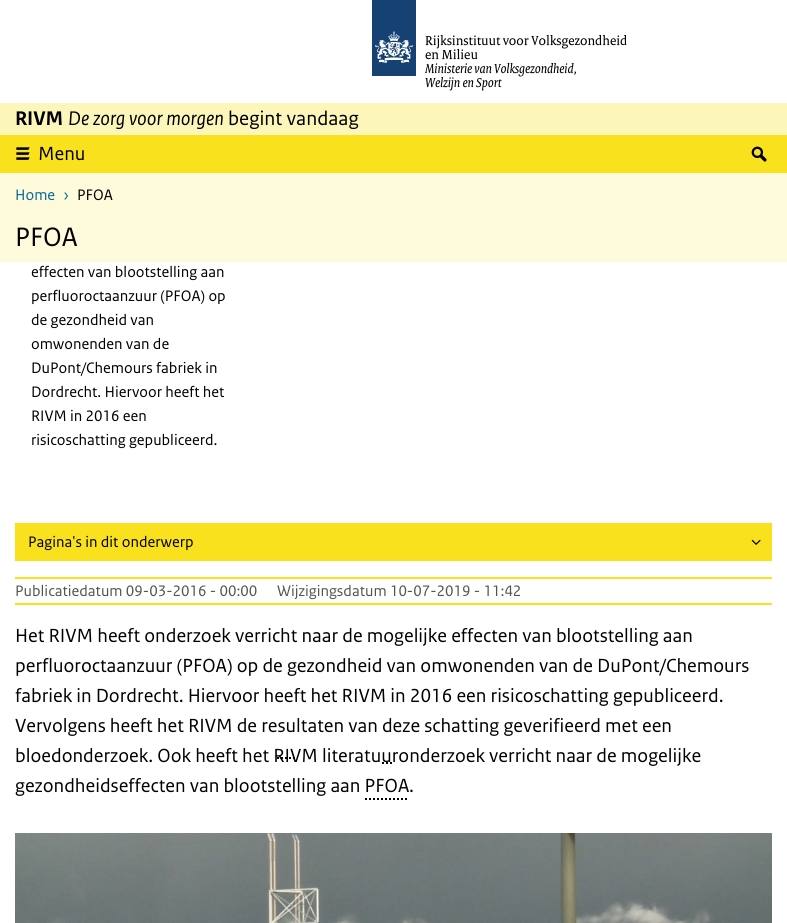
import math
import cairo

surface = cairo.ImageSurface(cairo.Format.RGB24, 787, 923)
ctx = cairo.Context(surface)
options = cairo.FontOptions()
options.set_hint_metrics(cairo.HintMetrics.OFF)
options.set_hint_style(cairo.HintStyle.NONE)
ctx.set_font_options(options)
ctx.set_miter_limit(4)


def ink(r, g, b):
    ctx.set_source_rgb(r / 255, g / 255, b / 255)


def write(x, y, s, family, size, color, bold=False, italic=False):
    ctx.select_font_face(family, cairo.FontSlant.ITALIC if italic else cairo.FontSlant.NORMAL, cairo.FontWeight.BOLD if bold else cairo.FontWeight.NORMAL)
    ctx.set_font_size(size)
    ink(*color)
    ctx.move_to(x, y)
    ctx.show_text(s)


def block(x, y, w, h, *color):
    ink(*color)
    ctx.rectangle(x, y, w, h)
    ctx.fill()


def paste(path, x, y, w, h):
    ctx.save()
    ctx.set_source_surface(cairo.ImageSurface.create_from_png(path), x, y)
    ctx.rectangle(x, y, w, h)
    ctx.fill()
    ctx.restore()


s1 = dict(family="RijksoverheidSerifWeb", size=14, color=(0, 0, 0))
s2 = dict(family="RijksoverheidSerifWeb", size=14, color=(0, 0, 0), italic=True)
s3 = dict(family="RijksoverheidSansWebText", size=20.75, color=(0, 0, 0), bold=True)
s4 = dict(family="RijksoverheidSansWebText", size=20.75, color=(0, 0, 0), italic=True)
s5 = dict(family="RijksoverheidSansWebText", size=20.75, color=(0, 0, 0))
s6 = dict(family="RijksoverheidSansWebText", size=20, color=(0, 0, 0))
s7 = dict(family="RijksoverheidSansWebText", size=16, color=(1, 104, 155))
s8 = dict(family="RijksoverheidSansWebText", size=16, color=(0, 0, 0))
s9 = dict(family="RijksoverheidSansWebText", size=28, color=(0, 0, 0))
s10 = dict(family="RijksoverheidSansWebText", size=16, color=(83, 83, 83))

ink(255, 255, 255)
ctx.paint()
paste("pic1.png", 372, 0, 44, 76)
write(425, 45, "Rijksinstituut voor Volksgezondheid", **s1)
write(425, 59, "en Milieu", **s1)
write(425, 73, "Ministerie van Volksgezondheid,", **s2)
write(425, 87, "Welzijn en Sport", **s2)
block(0, 103, 787, 32, 253, 246, 187)
write(15, 125, "RIVM", **s3)
write(68, 125, "De zorg voor morgen", **s4)
write(228, 125, "begint vandaag", **s5)
block(0, 135, 787, 38, 249, 225, 30)
paste("pic2.png", 16, 147, 14, 13)
write(38, 160, "Menu", **s6)
paste("pic3.png", 751, 146, 16, 16)
block(0, 173, 787, 89, 254, 251, 221)
write(15, 200, "Home", **s7)
write(63, 200, "›", **s7)
write(77, 200, "PFOA", **s8)
write(15, 246, "PFOA", **s9)
write(31, 277, "effecten van blootstelling aan", **s8)
write(31, 301, "perfluoroctaanzuur (PFOA) op", **s8)
write(31, 325, "de gezondheid van", **s8)
write(31, 349, "omwonenden van de", **s8)
write(31, 373, "DuPont/Chemours fabriek in", **s8)
write(31, 397, "Dordrecht. Hiervoor heeft het", **s8)
write(31, 421, "RIVM in 2016 een", **s8)
write(31, 445, "risicoschatting gepubliceerd.", **s8)
block(15, 523, 757, 38, 249, 225, 30)
write(28, 547, "Pagina's in dit onderwerp", **s8)
paste("pic4.png", 751, 539, 10, 6)
block(15, 577, 757, 2, 249, 225, 30)
block(15, 603, 757, 2, 249, 225, 30)
write(15, 596, "Publicatiedatum 09-03-2016 - 00:00", **s10)
write(277, 596, "Wijzigingsdatum 10-07-2019 - 11:42", **s10)
write(15, 642, "Het RIVM heeft onderzoek verricht naar de mogelijke effecten van blootstelling aan", **s6)
write(15, 672, "perfluoroctaanzuur (PFOA) op de gezondheid van omwonenden van de DuPont/Chemours", **s6)
write(15, 702, "fabriek in Dordrecht. Hiervoor heeft het RIVM in 2016 een risicoschatting gepubliceerd.", **s6)
write(15, 732, "Vervolgens heeft het RIVM de resultaten van deze schatting geverifieerd met een", **s6)
write(15, 762, "bloedonderzoek. Ook heeft het RIVM literatuuronderzoek verricht naar de mogelijke", **s6)
ctx.new_path()
ctx.move_to(277, 758)
ctx.line_to(295, 758)
ctx.set_dash([2, 2])
ctx.stroke()
ctx.new_path()
ctx.move_to(382, 763)
ctx.line_to(384, 763)
ctx.move_to(386, 763)
ctx.line_to(388, 763)
ctx.move_to(390, 763)
ctx.line_to(392, 763)
ctx.set_dash([])
ctx.stroke()
write(15, 792, "gezondheidseffecten van blootstelling aan PFOA", **s6)
write(409, 792, ".", **s6)
ctx.new_path()
ctx.move_to(365, 799)
ctx.line_to(409, 799)
ctx.set_dash([2, 2])
ctx.stroke()
paste("pic5.png", 15, 833, 757, 90)
surface.write_to_png("screenshot.png")
